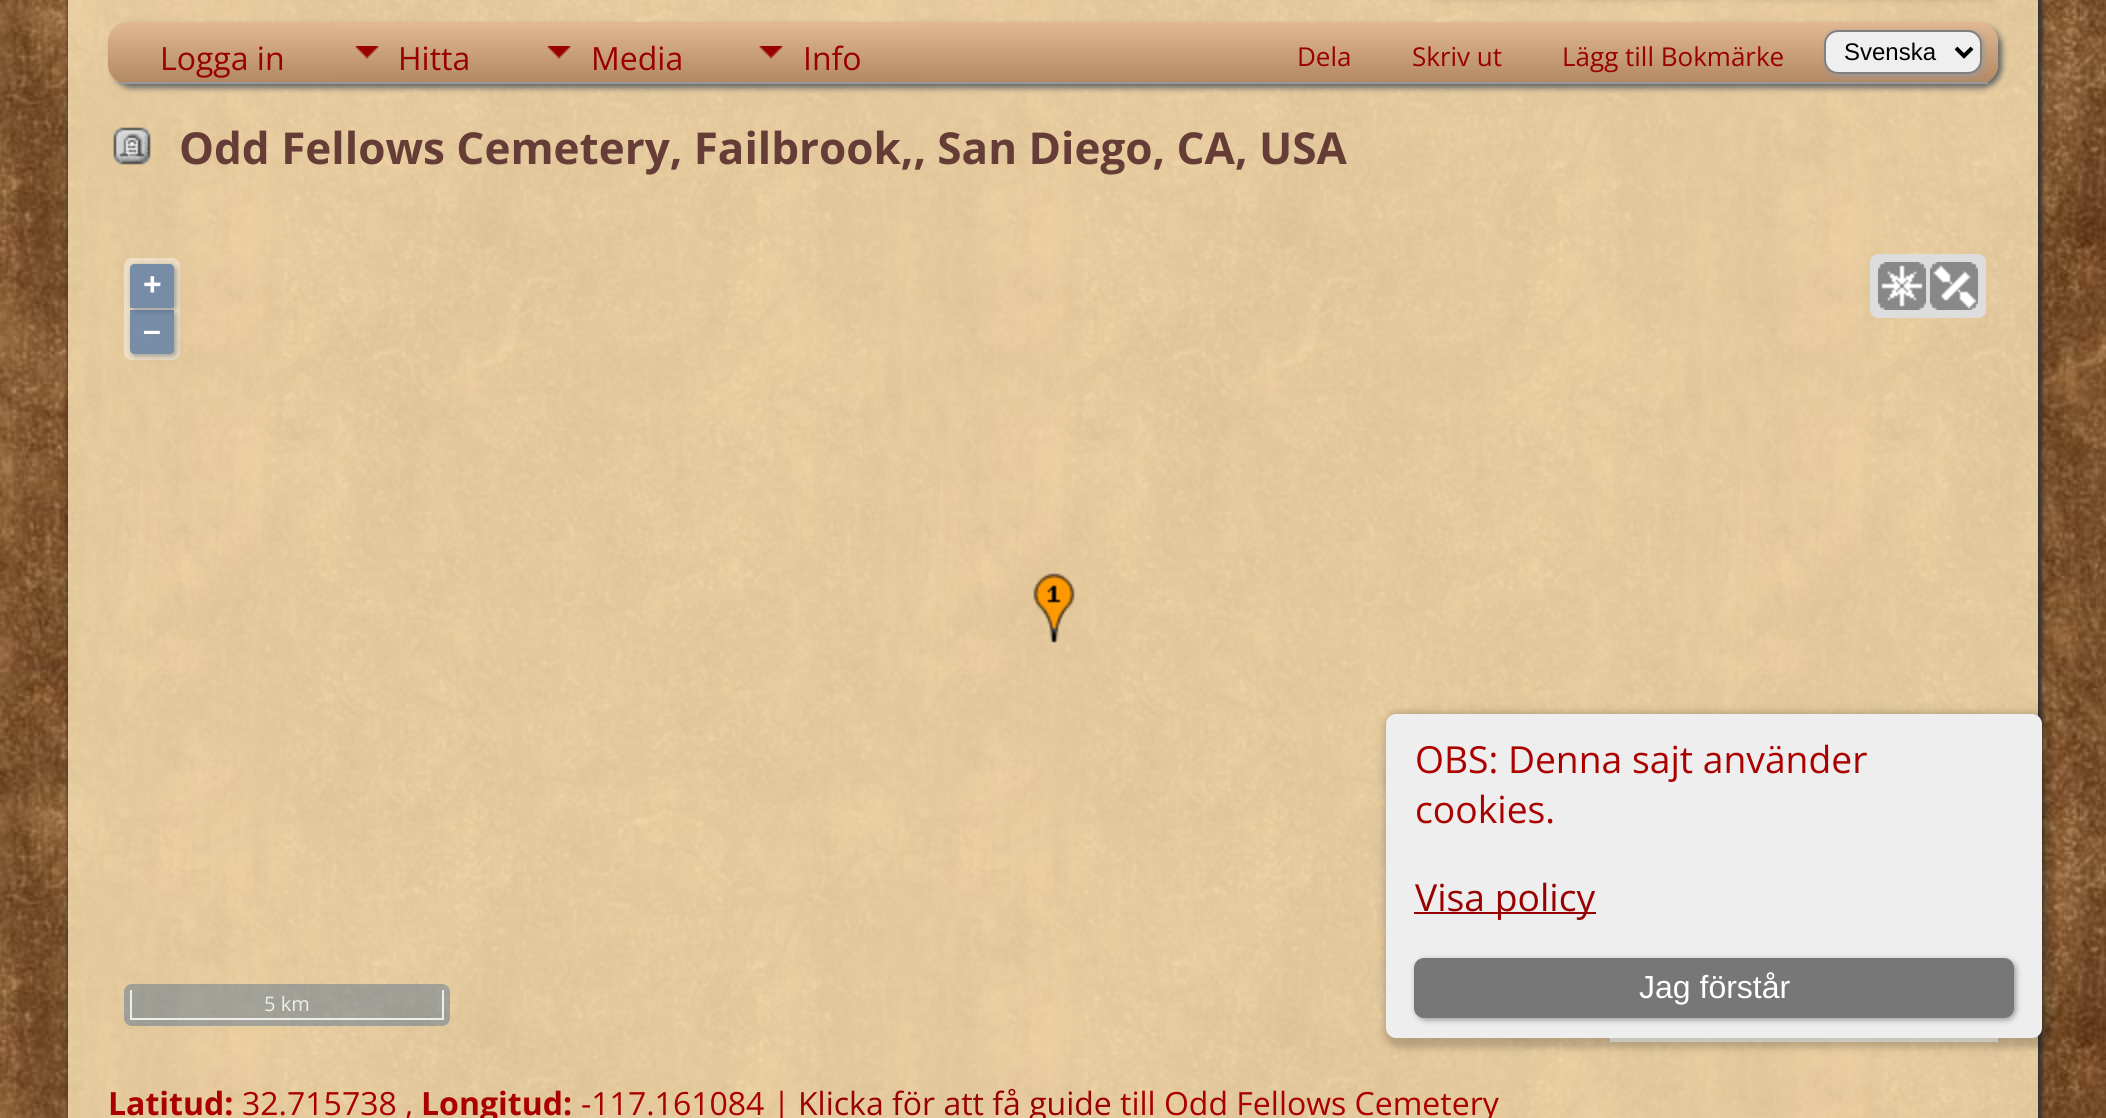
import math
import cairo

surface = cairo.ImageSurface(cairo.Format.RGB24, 2106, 1118)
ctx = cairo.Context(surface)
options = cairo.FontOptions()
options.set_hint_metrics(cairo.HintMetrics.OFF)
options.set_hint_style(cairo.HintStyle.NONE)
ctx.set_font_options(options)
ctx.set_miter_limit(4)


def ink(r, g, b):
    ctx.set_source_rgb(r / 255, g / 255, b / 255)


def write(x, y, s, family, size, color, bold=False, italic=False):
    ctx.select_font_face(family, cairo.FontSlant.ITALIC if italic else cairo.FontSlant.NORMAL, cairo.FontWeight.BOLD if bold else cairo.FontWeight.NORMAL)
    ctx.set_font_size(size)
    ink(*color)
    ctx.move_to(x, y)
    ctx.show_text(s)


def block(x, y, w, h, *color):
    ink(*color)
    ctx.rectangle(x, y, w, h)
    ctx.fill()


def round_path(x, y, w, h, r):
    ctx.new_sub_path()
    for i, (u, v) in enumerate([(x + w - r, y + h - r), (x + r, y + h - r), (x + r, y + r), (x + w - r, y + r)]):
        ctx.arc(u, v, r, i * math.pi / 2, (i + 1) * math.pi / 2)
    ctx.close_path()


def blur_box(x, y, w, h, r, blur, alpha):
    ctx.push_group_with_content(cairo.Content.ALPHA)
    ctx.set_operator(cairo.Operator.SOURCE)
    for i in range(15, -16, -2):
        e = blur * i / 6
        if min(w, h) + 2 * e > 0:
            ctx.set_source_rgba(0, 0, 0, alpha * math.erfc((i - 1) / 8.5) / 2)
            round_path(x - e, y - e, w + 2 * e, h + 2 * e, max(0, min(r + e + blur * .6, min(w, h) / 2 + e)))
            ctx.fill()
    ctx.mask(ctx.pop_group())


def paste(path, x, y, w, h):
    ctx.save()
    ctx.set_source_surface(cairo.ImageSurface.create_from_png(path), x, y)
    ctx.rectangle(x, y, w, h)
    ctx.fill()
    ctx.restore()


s1 = dict(family="Open Sans", size=32, color=(153, 0, 0))
s2 = dict(family="Open Sans", size=26, color=(153, 0, 0))
s3 = dict(family="Liberation Sans", size=24, color=(0, 0, 0))
s4 = dict(family="Open Sans", size=44, color=(102, 60, 54), bold=True)
s5 = dict(family="Liberation Sans", size=32, color=(255, 255, 255), bold=True)
s6 = dict(family="Open Sans", size=20, color=(238, 238, 238))
s7 = dict(family="Open Sans", size=37.25, color=(170, 0, 0))
s8 = dict(family="Open Sans", size=37.25, color=(153, 0, 0))
s9 = dict(family="Liberation Sans", size=32, color=(255, 255, 255))
s10 = dict(family="Open Sans", size=32, color=(170, 0, 0), bold=True)
s11 = dict(family="Open Sans", size=32, color=(170, 0, 0))

ink(255, 255, 255)
ctx.paint()
paste("pic1.png", 0, 0, 2106, 1118)
ctx.save()
ctx.set_fill_rule(cairo.FillRule.EVEN_ODD)
ctx.new_path()
ctx.move_to(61, 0)
ctx.line_to(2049, 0)
ctx.line_to(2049, 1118)
ctx.line_to(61, 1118)
ctx.close_path()
ctx.move_to(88, -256)
ctx.line_to(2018, -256)
ctx.curve_to(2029, -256, 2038, -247, 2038, -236)
ctx.line_to(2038, 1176)
ctx.curve_to(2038, 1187, 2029, 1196, 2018, 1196)
ctx.line_to(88, 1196)
ctx.curve_to(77, 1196, 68, 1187, 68, 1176)
ctx.line_to(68, -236)
ctx.curve_to(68, -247, 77, -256, 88, -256)
ctx.close_path()
ctx.clip()
ink(51, 51, 51)
blur_box(68, -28, 1974, 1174, 22, 2, 1)
ctx.restore()
ink(68, 68, 68)
blur_box(1430, -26, 130, 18, 8, 6, 1)
blur_box(1580, -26, 138, 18, 8, 6, 1)
blur_box(1738, -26, 258, 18, 8, 6, 1)
ink(102, 102, 102)
blur_box(112, 26, 1890, 62, 20, 3, 1)
ink(226, 185, 147)
round_path(108, 22, 1890, 62, 20)
ctx.fill()
ctx.save()
round_path(108, 22, 1890, 62, 20)
ctx.clip()
gradient = cairo.LinearGradient(1053, 22, 1053, 82)
gradient.add_color_stop_rgba(0, 0.886, 0.725, 0.576, 1)
gradient.add_color_stop_rgba(1, 0.698, 0.537, 0.388, 1)
ctx.set_source(gradient)
ctx.new_path()
ctx.move_to(128, 22)
ctx.line_to(1978, 22)
ctx.curve_to(1989, 22, 1998, 31, 1998, 42)
ctx.line_to(1998, 82)
ctx.line_to(108, 82)
ctx.line_to(108, 42)
ctx.curve_to(108, 31, 117, 22, 128, 22)
ctx.close_path()
ctx.fill()
ctx.restore()
block(118, 82, 1870, 2, 153, 153, 153)
write(160, 70, "Logga in", **s1)
block(338, 25, 584, 2, 226, 185, 147)
paste("pic2.png", 338, 27, 192, 55)
write(398, 70, "Hitta", **s1)
paste("pic3.png", 530, 27, 212, 55)
write(591, 70, "Media", **s1)
paste("pic4.png", 742, 27, 180, 55)
write(803, 70, "Info", **s1)
write(1297, 66, "Dela", **s2)
write(1412, 66, "Skriv ut", **s2)
write(1562, 66, "Lägg till Bokmärke", **s2)
ink(153, 153, 153)
blur_box(1826, 32, 158, 44, 14, 3, 1)
ink(239, 239, 239)
round_path(1825, 31, 156, 42, 13)
ctx.fill_preserve()
ink(128, 128, 128)
ctx.stroke()
ctx.new_path()
ctx.move_to(1956, 48)
ctx.line_to(1964, 56)
ctx.line_to(1972, 48)
ink(0, 0, 0)
ctx.set_line_width(4)
ctx.stroke()
write(1844, 60, "Svenska", **s3)
paste("pic5.png", 113, 127, 38, 38)
write(179, 164, "Odd Fellows Cemetery, Failbrook,, San Diego, CA, USA", **s4)
ctx.set_source_rgba(1, 1, 1, 0.4)
round_path(124, 258, 56, 102, 8)
ctx.fill()
ctx.save()
ctx.set_fill_rule(cairo.FillRule.EVEN_ODD)
ctx.new_path()
ctx.move_to(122, 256)
ctx.line_to(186, 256)
ctx.line_to(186, 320)
ctx.line_to(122, 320)
ctx.close_path()
ctx.move_to(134, 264)
ctx.line_to(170, 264)
ctx.curve_to(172, 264, 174, 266, 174, 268)
ctx.line_to(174, 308)
ctx.line_to(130, 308)
ctx.line_to(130, 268)
ctx.curve_to(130, 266, 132, 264, 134, 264)
ctx.close_path()
ctx.clip()
ink(153, 153, 153)
blur_box(132, 266, 44, 44, 4, 3, 1)
ctx.restore()
ctx.set_source_rgba(0, 0.235, 0.533, 0.5)
ctx.new_path()
ctx.move_to(134, 264)
ctx.line_to(170, 264)
ctx.curve_to(172, 264, 174, 266, 174, 268)
ctx.line_to(174, 308)
ctx.line_to(130, 308)
ctx.line_to(130, 268)
ctx.curve_to(130, 266, 132, 264, 134, 264)
ctx.close_path()
ctx.fill()
write(143, 295, "+", **s5)
ctx.save()
ctx.set_fill_rule(cairo.FillRule.EVEN_ODD)
ctx.new_path()
ctx.move_to(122, 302)
ctx.line_to(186, 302)
ctx.line_to(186, 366)
ctx.line_to(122, 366)
ctx.close_path()
ctx.move_to(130, 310)
ctx.line_to(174, 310)
ctx.line_to(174, 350)
ctx.curve_to(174, 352, 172, 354, 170, 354)
ctx.line_to(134, 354)
ctx.curve_to(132, 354, 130, 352, 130, 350)
ctx.close_path()
ctx.clip()
ink(153, 153, 153)
blur_box(132, 312, 44, 44, 4, 3, 1)
ctx.restore()
ctx.set_source_rgba(0, 0.235, 0.533, 0.5)
ctx.new_path()
ctx.move_to(130, 310)
ctx.line_to(174, 310)
ctx.line_to(174, 350)
ctx.curve_to(174, 352, 172, 354, 170, 354)
ctx.line_to(134, 354)
ctx.curve_to(132, 354, 130, 352, 130, 350)
ctx.close_path()
ctx.fill()
write(143, 341, "–", **s5)
ctx.set_source_rgba(0, 0.235, 0.533, 0.3)
round_path(124, 984, 326, 42, 8)
ctx.fill()
block(442, 990, 2, 30, 238, 238, 238)
block(130, 1018, 314, 2, 238, 238, 238)
block(130, 990, 2, 30, 238, 238, 238)
write(264, 1011, "5 km", **s6)
ctx.set_source_rgba(1, 1, 1, 0.8)
ctx.rectangle(1610, 1038, 388, 4)
ctx.fill()
paste("pic6.png", 1033, 573, 42, 70)
ink(221, 221, 221)
round_path(1870, 254, 116, 64, 8)
ctx.fill()
paste("pic7.png", 1878, 262, 48, 48)
paste("pic8.png", 1930, 262, 48, 48)
ink(0, 0, 0)
blur_box(1384, 712, 668, 336, 16, 4, 0.2)
ink(238, 238, 238)
round_path(1386, 714, 656, 324, 10)
ctx.fill()
write(1415, 773, "OBS: Denna sajt använder", **s7)
write(1415, 823, "cookies.", **s7)
block(1414, 912, 182, 2, 153, 0, 0)
write(1415, 911, "Visa policy", **s8)
ink(153, 153, 153)
blur_box(1416, 960, 600, 60, 10, 3, 1)
ink(119, 119, 119)
round_path(1414, 958, 600, 60, 10)
ctx.fill()
write(1639, 998, "Jag förstår", **s9)
write(108, 1115, "Latitud:", **s10)
write(242, 1115, "32.715738 ,", **s11)
write(421, 1115, "Longitud:", **s10)
write(581, 1115, "-117.161084 |", **s11)
write(798, 1115, "Klicka för att få guide", **s1)
write(1120, 1115, "till Odd Fellows Cemetery", **s11)
surface.write_to_png("screenshot.png")
